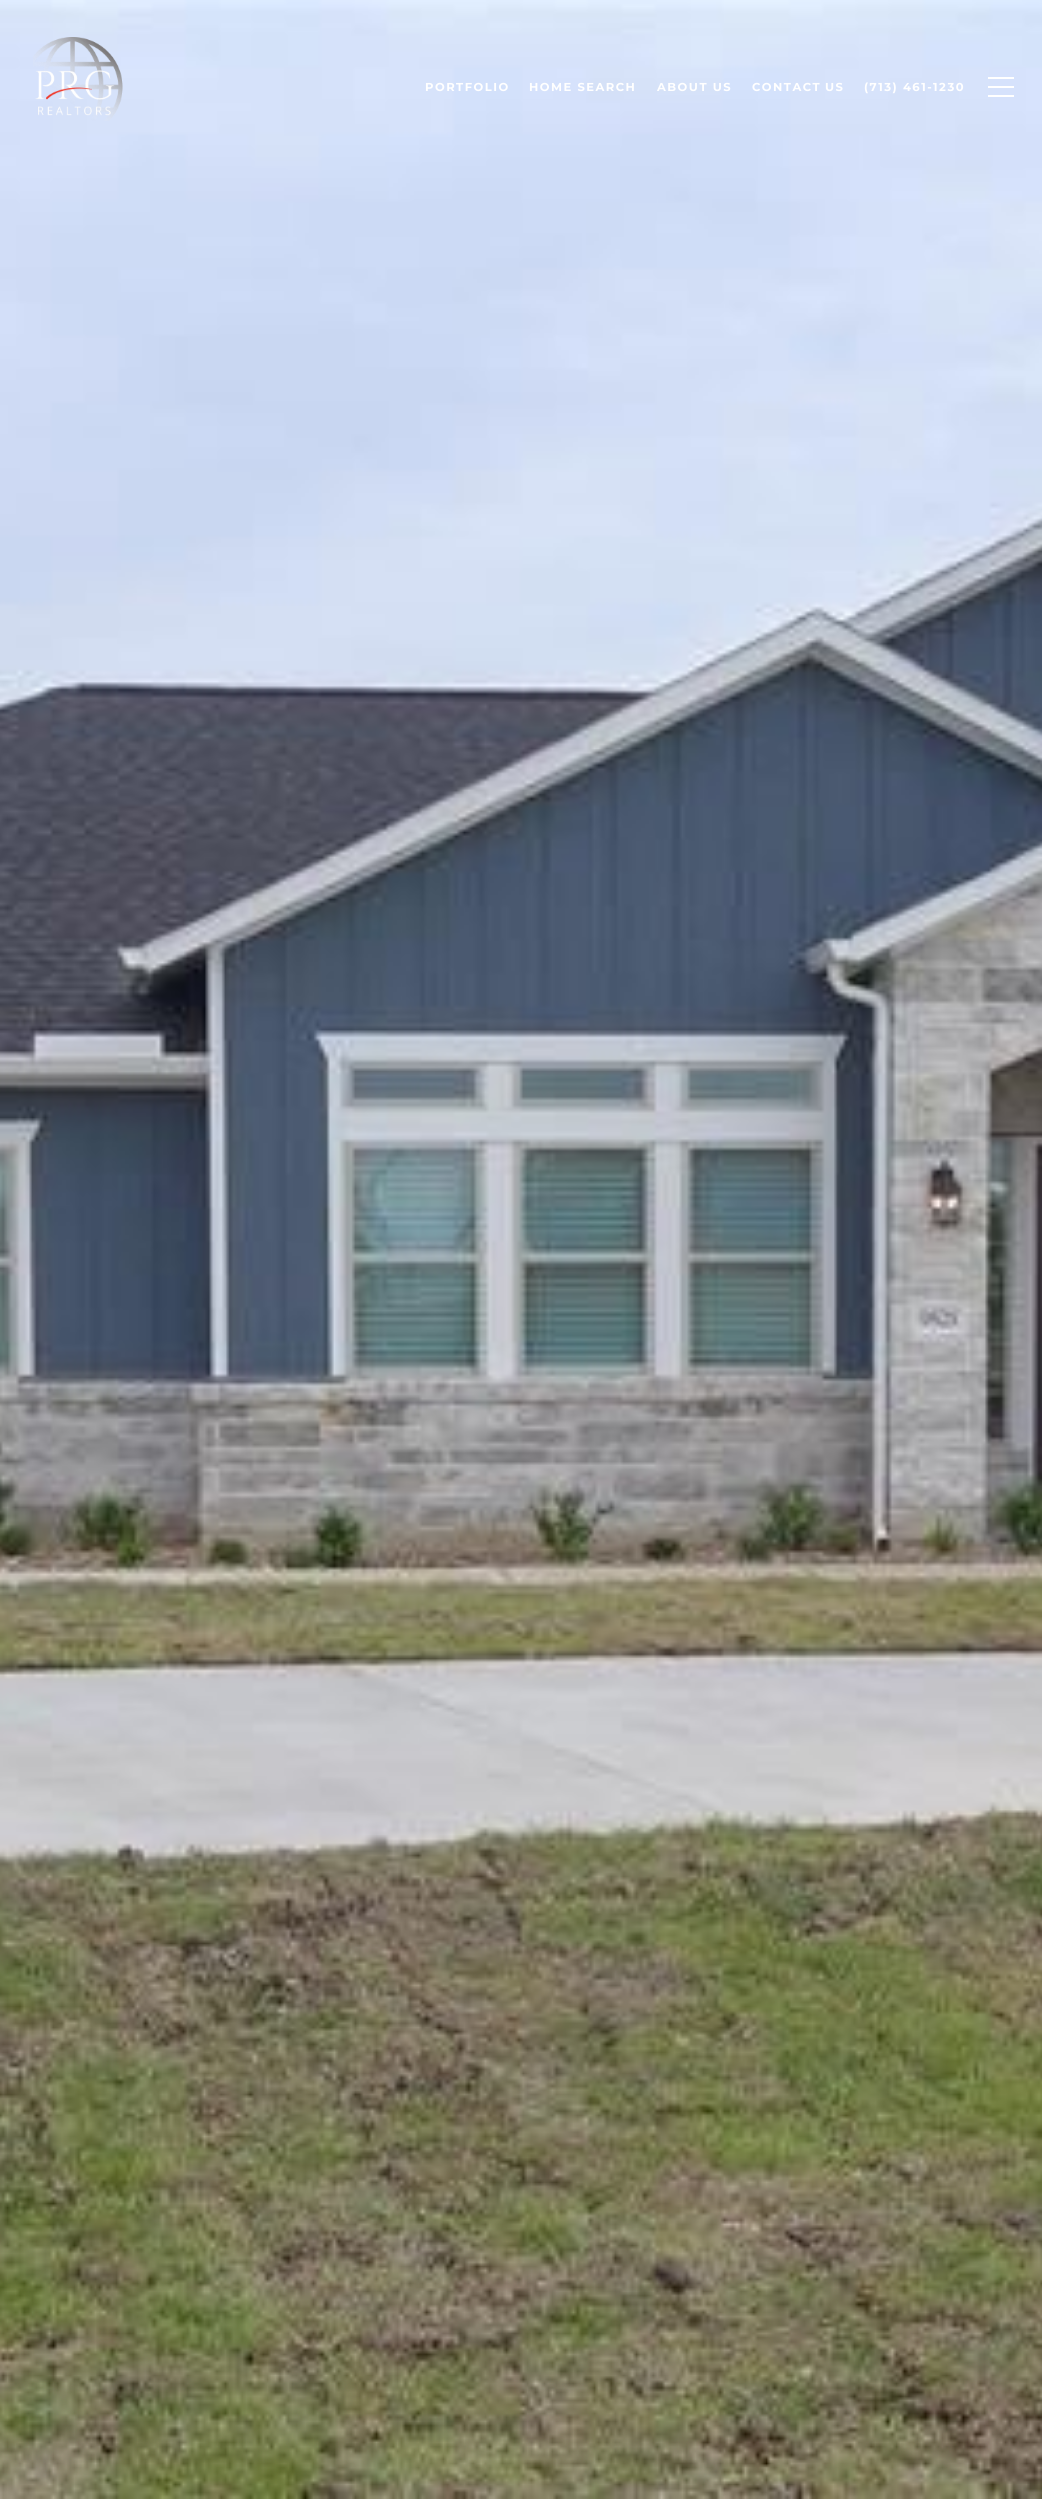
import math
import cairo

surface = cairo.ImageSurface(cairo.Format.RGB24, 1042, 2499)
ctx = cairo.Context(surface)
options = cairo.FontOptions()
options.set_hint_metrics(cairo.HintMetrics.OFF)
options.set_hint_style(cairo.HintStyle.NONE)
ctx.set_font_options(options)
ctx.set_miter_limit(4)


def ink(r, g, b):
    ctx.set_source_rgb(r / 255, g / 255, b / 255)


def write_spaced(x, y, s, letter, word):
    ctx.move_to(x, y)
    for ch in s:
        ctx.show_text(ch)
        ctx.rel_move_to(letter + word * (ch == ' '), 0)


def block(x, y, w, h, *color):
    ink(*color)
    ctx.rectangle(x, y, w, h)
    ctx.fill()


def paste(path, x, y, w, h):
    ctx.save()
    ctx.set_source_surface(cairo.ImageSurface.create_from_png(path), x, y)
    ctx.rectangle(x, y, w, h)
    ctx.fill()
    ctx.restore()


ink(255, 255, 255)
ctx.paint()
paste("pic1.png", 0, 0, 1042, 2499)
paste("pic2.png", 33, 37, 90, 84)
ctx.select_font_face("Montserrat", cairo.FontSlant.NORMAL, cairo.FontWeight.BOLD)
ctx.set_font_size(11.5)
ink(255, 255, 255)
write_spaced(425, 91, "PORTFOLIO", 1.5, 0)
write_spaced(529, 91, "HOME SEARCH", 1.5, 0)
write_spaced(657, 91, "ABOUT US", 1.5, 0)
write_spaced(752, 91, "CONTACT US", 1.5, -1)
write_spaced(864, 91, "(713) 461-1230", 1.5, 0)
block(988, 86, 26, 2, 255, 255, 255)
block(988, 77, 26, 2, 255, 255, 255)
block(988, 95, 26, 2, 255, 255, 255)
surface.write_to_png("screenshot.png")
